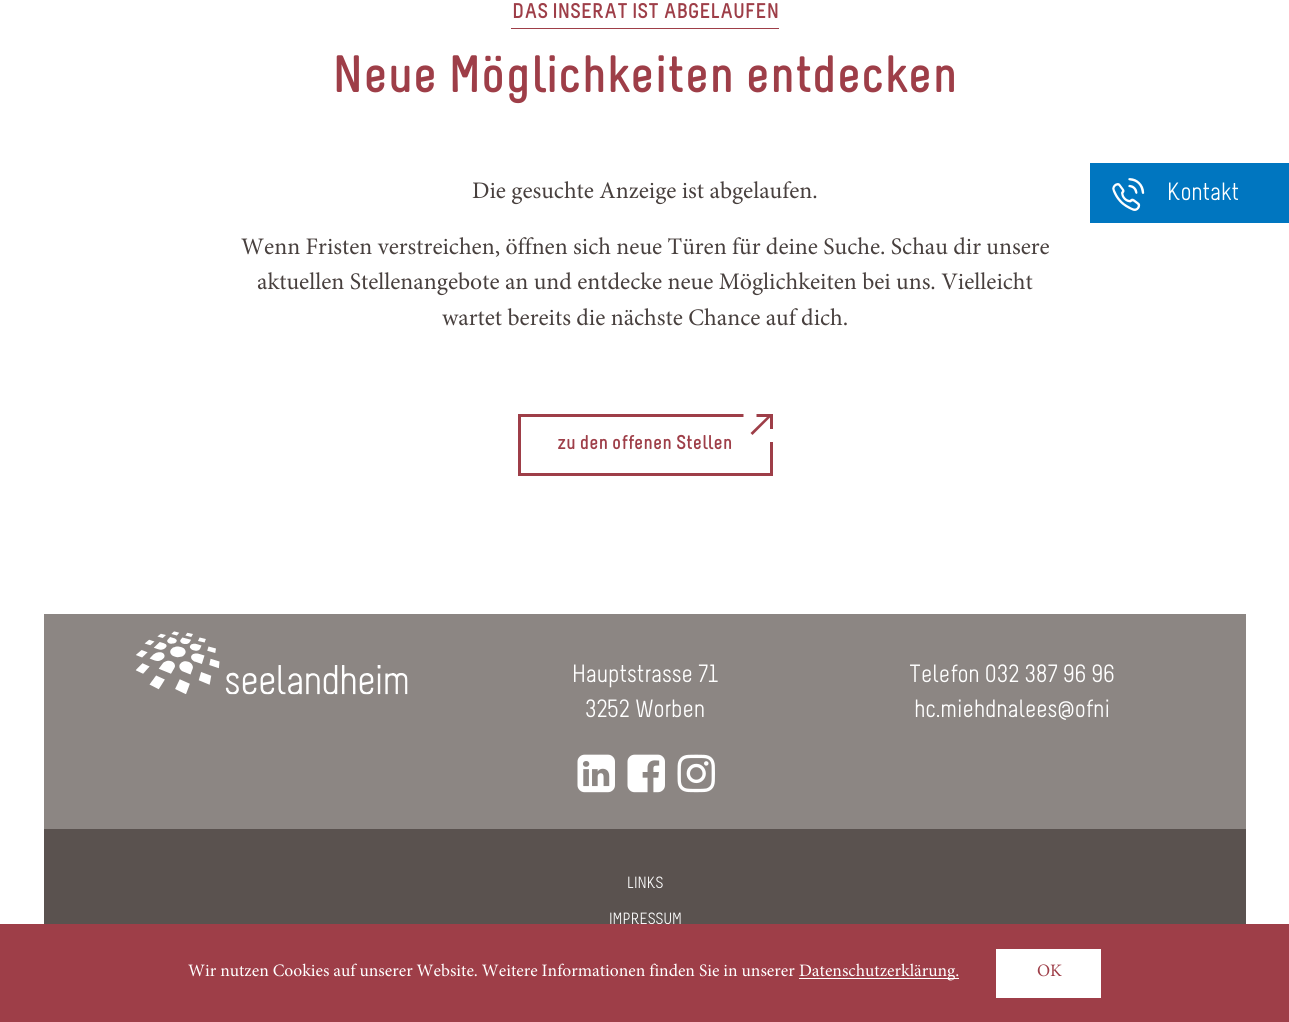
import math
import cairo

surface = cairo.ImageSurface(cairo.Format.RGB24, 1289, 1022)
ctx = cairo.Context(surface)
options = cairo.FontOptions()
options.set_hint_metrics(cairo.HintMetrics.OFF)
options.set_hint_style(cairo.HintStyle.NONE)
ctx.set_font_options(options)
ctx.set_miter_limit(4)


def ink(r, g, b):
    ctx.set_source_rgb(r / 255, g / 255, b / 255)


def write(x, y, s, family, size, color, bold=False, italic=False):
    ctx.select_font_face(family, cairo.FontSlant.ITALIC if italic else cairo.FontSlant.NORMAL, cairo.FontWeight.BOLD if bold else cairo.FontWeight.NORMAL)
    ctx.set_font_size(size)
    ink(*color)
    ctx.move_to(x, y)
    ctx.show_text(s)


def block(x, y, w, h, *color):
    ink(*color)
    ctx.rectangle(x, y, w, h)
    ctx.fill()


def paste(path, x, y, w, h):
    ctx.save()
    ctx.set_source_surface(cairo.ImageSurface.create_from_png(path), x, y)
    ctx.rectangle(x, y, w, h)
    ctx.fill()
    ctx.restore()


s1 = dict(family="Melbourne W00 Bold", size=21.25, color=(158, 62, 72), bold=True)
s2 = dict(family="Melbourne W00 Bold", size=52.5, color=(158, 62, 72), bold=True)
s3 = dict(family="minion", size=23.75, color=(72, 64, 62))
s4 = dict(family="Melbourne W00 Bold", size=20, color=(158, 62, 72), bold=True)
s5 = dict(family="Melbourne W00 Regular", size=25, color=(255, 255, 255))
s6 = dict(family="Melbourne W00 Regular", size=16.25, color=(255, 255, 255))
s7 = dict(family="minion", size=17.5, color=(255, 255, 255))
s8 = dict(family="minion", size=17.5, color=(158, 62, 72))

ink(255, 255, 255)
ctx.paint()
block(511, 28, 268, 1, 158, 62, 72)
write(512, 18, "DAS INSERAT IST ABGELAUFEN", **s1)
write(332, 92, "Neue Möglichkeiten entdecken", **s2)
write(472, 198, "Die gesuchte Anzeige ist abgelaufen.", **s3)
write(241, 254, "Wenn Fristen verstreichen, öffnen sich neue Türen für deine Suche. Schau dir unsere", **s3)
write(257, 289, "aktuellen Stellenangebote an und entdecke neue Möglichkeiten bei uns. Vielleicht", **s3)
write(442, 325, "wartet bereits die nächste Chance auf dich.", **s3)
ctx.rectangle(519.5, 415.5, 252, 59)
ink(158, 62, 72)
ctx.set_line_width(3)
ctx.stroke()
ink(255, 255, 255)
ctx.new_path()
ctx.move_to(756.5, 423.5)
ctx.line_to(743.5, 423.5)
ctx.line_to(743.5, 412)
ctx.line_to(756.5, 412)
ctx.close_path()
ctx.move_to(774, 442)
ctx.line_to(763.5, 442)
ctx.line_to(763.5, 429)
ctx.line_to(774, 429)
ctx.close_path()
ctx.fill()
ink(158, 62, 72)
ctx.new_path()
ctx.move_to(772, 415.5)
ctx.line_to(752.5, 435)
ctx.line_to(750.5, 433)
ctx.line_to(770, 414)
ctx.close_path()
ctx.fill()
write(557, 449, "zu den offenen Stellen", **s4)
block(44, 614, 1202, 215, 140, 134, 131)
paste("pic1.png", 135, 631, 273, 64)
write(572, 682, "Hauptstrasse 71", **s5)
write(585, 717, "3252 Worben", **s5)
write(909, 682, "Telefon 032 387 96 96", **s5)
write(914, 717, "hc.miehdnalees@ofni", **s5)
paste("pic2.png", 577, 754, 38, 39)
paste("pic3.png", 627, 754, 38, 39)
paste("pic4.png", 677, 754, 38, 39)
block(44, 829, 1202, 95, 90, 82, 79)
write(627, 888, "LINKS", **s6)
write(609, 924, "IMPRESSUM", **s6)
block(1090, 163, 199, 60, 0, 118, 192)
paste("pic5.png", 1112, 178, 33, 33)
write(1167, 200, "Kontakt", **s5)
block(0, 924, 1289, 98, 158, 62, 72)
write(188, 976, "Wir nutzen Cookies auf unserer Website. Weitere Informationen finden Sie in unserer", **s7)
block(799, 978, 160, 1, 255, 255, 255)
write(799, 976, "Datenschutzerklärung.", **s7)
block(996, 949, 105, 49, 255, 255, 255)
write(1037, 976, "OK", **s8)
surface.write_to_png("screenshot.png")
